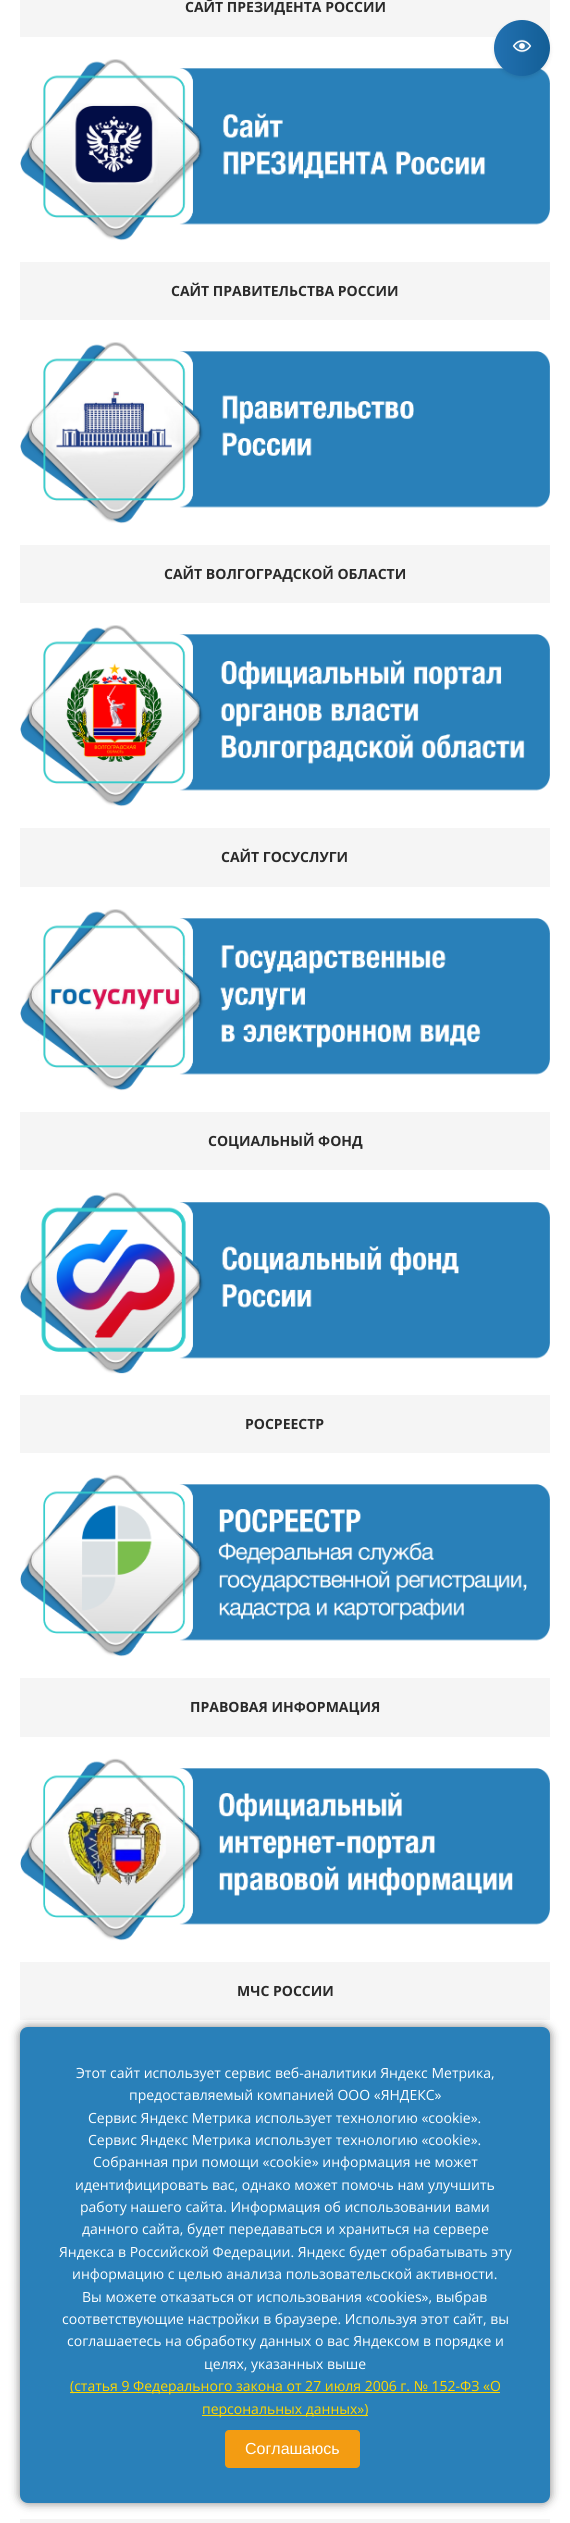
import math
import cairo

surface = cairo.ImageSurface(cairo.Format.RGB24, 570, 2523)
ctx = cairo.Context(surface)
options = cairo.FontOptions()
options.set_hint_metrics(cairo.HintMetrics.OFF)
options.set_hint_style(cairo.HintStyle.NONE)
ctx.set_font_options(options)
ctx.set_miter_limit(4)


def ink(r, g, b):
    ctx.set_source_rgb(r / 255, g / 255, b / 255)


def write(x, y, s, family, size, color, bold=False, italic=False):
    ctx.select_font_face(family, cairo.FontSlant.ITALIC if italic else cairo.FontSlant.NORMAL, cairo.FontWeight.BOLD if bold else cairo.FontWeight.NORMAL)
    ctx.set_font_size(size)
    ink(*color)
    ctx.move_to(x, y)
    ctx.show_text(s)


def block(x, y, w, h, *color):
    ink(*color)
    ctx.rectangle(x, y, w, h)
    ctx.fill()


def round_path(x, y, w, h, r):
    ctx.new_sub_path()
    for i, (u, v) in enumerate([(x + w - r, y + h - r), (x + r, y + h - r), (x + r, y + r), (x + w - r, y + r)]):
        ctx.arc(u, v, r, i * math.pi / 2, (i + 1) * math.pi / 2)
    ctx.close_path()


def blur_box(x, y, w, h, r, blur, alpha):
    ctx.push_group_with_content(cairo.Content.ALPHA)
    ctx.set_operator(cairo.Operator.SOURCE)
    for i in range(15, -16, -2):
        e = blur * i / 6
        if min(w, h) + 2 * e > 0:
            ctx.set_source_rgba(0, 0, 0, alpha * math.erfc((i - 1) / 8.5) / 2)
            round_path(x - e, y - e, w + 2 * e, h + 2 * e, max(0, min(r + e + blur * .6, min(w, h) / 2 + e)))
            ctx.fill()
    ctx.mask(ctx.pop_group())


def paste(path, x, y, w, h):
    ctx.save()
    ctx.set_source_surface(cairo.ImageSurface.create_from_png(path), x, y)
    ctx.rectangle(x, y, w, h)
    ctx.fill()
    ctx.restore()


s1 = dict(family="Open Sans", size=14, color=(42, 42, 42), bold=True)
s2 = dict(family="Open Sans", size=14, color=(255, 255, 255))
s3 = dict(family="Open Sans", size=14, color=(255, 215, 0))
s4 = dict(family="Liberation Sans", size=16, color=(255, 255, 255))

ink(255, 255, 255)
ctx.paint()
block(20, 0, 530, 37, 245, 245, 245)
write(185, 12, "САЙТ ПРЕЗИДЕНТА РОССИИ", **s1)
paste("pic1.png", 20, 59, 530, 182)
block(20, 262, 530, 58, 245, 245, 245)
write(171, 296, "САЙТ ПРАВИТЕЛЬСТВА РОССИИ", **s1)
paste("pic2.png", 20, 342, 530, 182)
block(20, 545, 530, 58, 245, 245, 245)
write(164, 579, "САЙТ ВОЛГОГРАДСКОЙ ОБЛАСТИ", **s1)
paste("pic3.png", 20, 625, 530, 182)
block(20, 828, 530, 59, 245, 245, 245)
write(221, 862, "САЙТ ГОСУСЛУГИ", **s1)
paste("pic4.png", 20, 909, 530, 182)
block(20, 1112, 530, 58, 245, 245, 245)
write(208, 1146, "СОЦИАЛЬНЫЙ ФОНД", **s1)
paste("pic5.png", 20, 1192, 530, 182)
block(20, 1395, 530, 58, 245, 245, 245)
write(245, 1429, "РОСРЕЕСТР", **s1)
paste("pic6.png", 20, 1474, 530, 183)
block(20, 1678, 530, 59, 245, 245, 245)
write(190, 1712, "ПРАВОВАЯ ИНФОРМАЦИЯ", **s1)
paste("pic7.png", 20, 1758, 530, 183)
block(20, 1962, 530, 58, 245, 245, 245)
write(237, 1996, "МЧС РОССИИ", **s1)
block(20, 2519, 530, 4, 245, 245, 245)
ink(0, 0, 0)
blur_box(20, 2027, 530, 476, 8, 5, 0.5)
ink(41, 128, 185)
round_path(20, 2027, 530, 476, 8)
ctx.fill()
write(76, 2078, "Этот сайт использует сервис веб-аналитики Яндекс Метрика,", **s2)
write(129, 2100, "предоставляемый компанией ООО «ЯНДЕКС»", **s2)
write(88, 2123, "Сервис Яндекс Метрика использует технологию «cookie».", **s2)
write(88, 2145, "Сервис Яндекс Метрика использует технологию «cookie».", **s2)
write(93, 2167, "Собранная при помощи «cookie» информация не может", **s2)
write(75, 2190, "идентифицировать вас, однако может помочь нам улучшить", **s2)
write(80, 2212, "работу нашего сайта. Информация об использовании вами", **s2)
write(82, 2234, "данного сайта, будет передаваться и храниться на сервере", **s2)
write(59, 2257, "Яндекса в Российской Федерации. Яндекс будет обрабатывать эту", **s2)
write(72, 2279, "информацию с целью анализа пользовательской активности.", **s2)
write(82, 2302, "Вы можете отказаться от использования «cookies», выбрав", **s2)
write(62, 2324, "соответствующие настройки в браузере. Используя этот сайт, вы", **s2)
write(67, 2346, "соглашаетесь на обработку данных о вас Яндексом в порядке и", **s2)
write(204, 2369, "целях, указанных выше", **s2)
block(70, 2392, 430, 1, 255, 215, 0)
write(70, 2391, "(статья 9 Федерального закона от 27 июля 2006 г. № 152-ФЗ «О", **s3)
block(202, 2415, 166, 1, 255, 215, 0)
write(202, 2414, "персональных данных»)", **s3)
ink(243, 156, 18)
round_path(225, 2430, 135, 38, 4)
ctx.fill()
write(245, 2454, "Соглашаюсь", **s4)
ink(0, 0, 0)
blur_box(494, 22, 56, 56, 28, 2, 0.1)
gradient = cairo.LinearGradient(494, 48, 550, 48)
gradient.add_color_stop_rgba(0, 0.133, 0.443, 0.694, 1)
gradient.add_color_stop_rgba(1, 0.075, 0.369, 0.588, 1)
ctx.set_source(gradient)
ctx.arc(522, 48, 28, 0, 2 * math.pi)
ctx.fill()
paste("pic8.png", 512, 39, 20, 14)
surface.write_to_png("screenshot.png")
